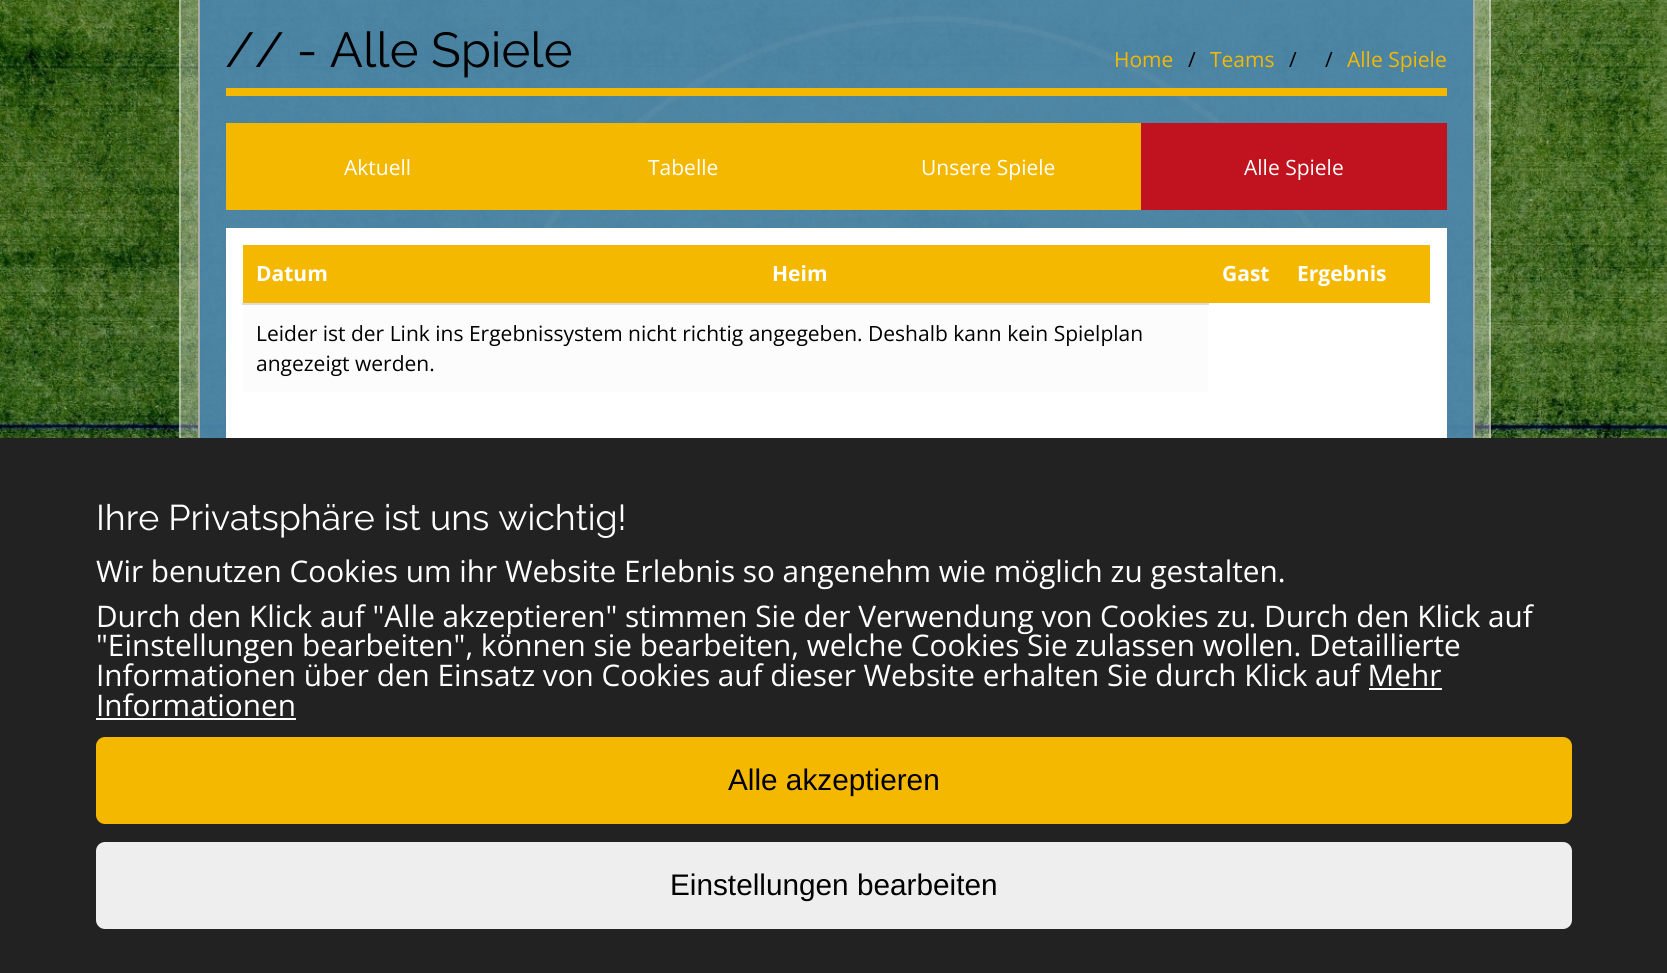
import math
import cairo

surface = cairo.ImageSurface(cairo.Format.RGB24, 1667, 973)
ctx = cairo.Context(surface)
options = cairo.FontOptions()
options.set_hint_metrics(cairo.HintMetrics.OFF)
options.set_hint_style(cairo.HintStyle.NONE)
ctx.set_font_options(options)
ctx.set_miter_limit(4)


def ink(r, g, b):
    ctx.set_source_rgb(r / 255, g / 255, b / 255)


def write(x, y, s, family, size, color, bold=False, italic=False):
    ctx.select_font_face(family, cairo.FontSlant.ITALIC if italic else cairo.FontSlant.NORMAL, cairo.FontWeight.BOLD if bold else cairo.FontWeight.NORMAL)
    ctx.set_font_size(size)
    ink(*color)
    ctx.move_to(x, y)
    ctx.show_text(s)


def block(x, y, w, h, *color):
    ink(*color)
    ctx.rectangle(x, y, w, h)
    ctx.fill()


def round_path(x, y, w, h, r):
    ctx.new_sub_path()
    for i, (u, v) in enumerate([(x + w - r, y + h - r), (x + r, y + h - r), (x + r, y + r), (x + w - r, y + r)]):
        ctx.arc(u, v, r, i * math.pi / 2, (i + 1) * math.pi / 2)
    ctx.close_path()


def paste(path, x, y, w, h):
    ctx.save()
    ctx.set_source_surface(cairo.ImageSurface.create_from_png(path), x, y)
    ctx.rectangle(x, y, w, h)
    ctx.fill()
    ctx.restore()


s1 = dict(family="Raleway", size=49, color=(0, 0, 0))
s2 = dict(family="Open Sans", size=21, color=(245, 184, 0))
s3 = dict(family="Open Sans", size=21, color=(0, 0, 0))
s4 = dict(family="Open Sans", size=21, color=(255, 255, 255))
s5 = dict(family="Open Sans", size=21, color=(255, 255, 255), bold=True)
s6 = dict(family="Raleway", size=35.75, color=(255, 255, 255))
s7 = dict(family="Open Sans", size=29.75, color=(255, 255, 255))
s8 = dict(family="Liberation Sans", size=29.75, color=(0, 0, 0))

ink(255, 255, 255)
ctx.paint()
paste("pic1.png", 0, 0, 1667, 438)
ctx.set_source_rgba(1, 1, 1, 0.3)
ctx.rectangle(179, 0, 1312, 438)
ctx.fill()
ctx.rectangle(180, -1, 1310, 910)
ctx.set_source_rgba(1, 1, 1, 0.4)
ctx.stroke()
ctx.set_source_rgba(0.275, 0.51, 0.663, 0.9)
ctx.rectangle(200, 0, 1273, 438)
ctx.fill()
ctx.rectangle(199, -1, 1275, 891)
ink(170, 170, 170)
ctx.stroke()
block(226, 88, 1221, 8, 245, 184, 0)
write(225, 67, "// - Alle Spiele", **s1)
write(1114, 67, "Home", **s2)
write(1188, 67, "/", **s3)
write(1210, 67, "Teams", **s2)
write(1289, 67, "/", **s3)
write(1325, 67, "/", **s3)
write(1347, 67, "Alle Spiele", **s2)
block(226, 123, 915, 87, 245, 184, 0)
write(344, 175, "Aktuell", **s4)
write(648, 175, "Tabelle", **s4)
write(921, 175, "Unsere Spiele", **s4)
block(1141, 123, 306, 87, 193, 18, 31)
write(1244, 175, "Alle Spiele", **s4)
block(226, 228, 1221, 210, 255, 255, 255)
block(243, 245, 1187, 58, 245, 184, 0)
write(256, 281, "Datum", **s5)
write(772, 281, "Heim", **s5)
write(1222, 281, "Gast", **s5)
write(1297, 281, "Ergebnis", **s5)
block(243, 305, 965, 87, 252, 252, 252)
block(242, 303, 967, 2, 221, 221, 221)
write(256, 341, "Leider ist der Link ins Ergebnissystem nicht richtig angegeben. Deshalb kann kein Spielplan", **s3)
write(256, 371, "angezeigt werden.", **s3)
block(0, 438, 1667, 535, 34, 34, 34)
write(96, 530, "Ihre Privatsphäre ist uns wichtig!", **s6)
write(96, 582, "Wir benutzen Cookies um ihr Website Erlebnis so angenehm wie möglich zu gestalten.", **s7)
write(96, 627, "Durch den Klick auf \"Alle akzeptieren\" stimmen Sie der Verwendung von Cookies zu. Durch den Klick auf", **s7)
write(96, 656, "\"Einstellungen bearbeiten\", können sie bearbeiten, welche Cookies Sie zulassen wollen. Detaillierte", **s7)
write(96, 686, "Informationen über den Einsatz von Cookies auf dieser Website erhalten Sie durch Klick auf Mehr", **s7)
write(96, 716, "Informationen", **s7)
block(1369, 688, 73, 2, 255, 255, 255)
block(96, 718, 200, 2, 255, 255, 255)
ink(245, 184, 0)
round_path(96, 737, 1476, 87, 9)
ctx.fill()
write(728, 790, "Alle akzeptieren", **s8)
ink(238, 238, 238)
round_path(96, 842, 1476, 87, 9)
ctx.fill()
write(670, 895, "Einstellungen bearbeiten", **s8)
surface.write_to_png("screenshot.png")
